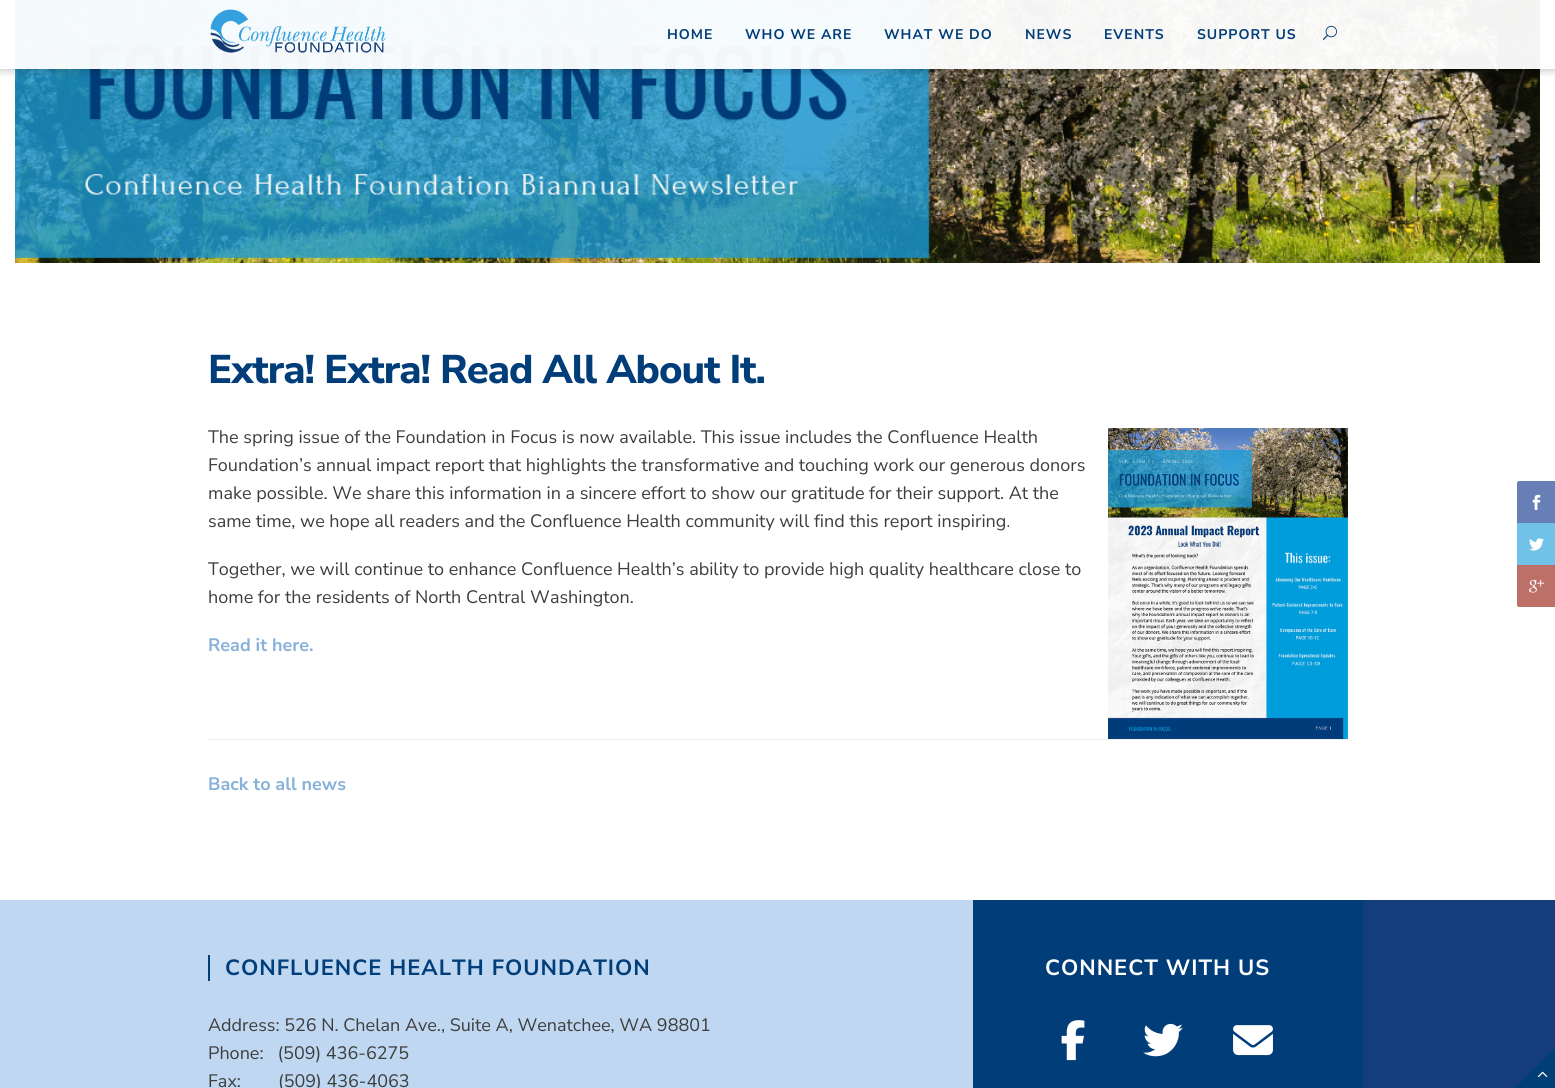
import math
import cairo

surface = cairo.ImageSurface(cairo.Format.RGB24, 1555, 1088)
ctx = cairo.Context(surface)
options = cairo.FontOptions()
options.set_hint_metrics(cairo.HintMetrics.OFF)
options.set_hint_style(cairo.HintStyle.NONE)
ctx.set_font_options(options)
ctx.set_miter_limit(4)


def ink(r, g, b):
    ctx.set_source_rgb(r / 255, g / 255, b / 255)


def write(x, y, s, family, size, color, bold=False, italic=False):
    ctx.select_font_face(family, cairo.FontSlant.ITALIC if italic else cairo.FontSlant.NORMAL, cairo.FontWeight.BOLD if bold else cairo.FontWeight.NORMAL)
    ctx.set_font_size(size)
    ink(*color)
    ctx.move_to(x, y)
    ctx.show_text(s)


def write_spaced(x, y, s, letter, word):
    ctx.move_to(x, y)
    for ch in s:
        ctx.show_text(ch)
        ctx.rel_move_to(letter + word * (ch == ' '), 0)


def block(x, y, w, h, *color):
    ink(*color)
    ctx.rectangle(x, y, w, h)
    ctx.fill()


def round_path(x, y, w, h, r):
    ctx.new_sub_path()
    for i, (u, v) in enumerate([(x + w - r, y + h - r), (x + r, y + h - r), (x + r, y + r), (x + w - r, y + r)]):
        ctx.arc(u, v, r, i * math.pi / 2, (i + 1) * math.pi / 2)
    ctx.close_path()


def blur_box(x, y, w, h, r, blur, alpha):
    ctx.push_group_with_content(cairo.Content.ALPHA)
    ctx.set_operator(cairo.Operator.SOURCE)
    for i in range(15, -16, -2):
        e = blur * i / 6
        if min(w, h) + 2 * e > 0:
            ctx.set_source_rgba(0, 0, 0, alpha * math.erfc((i - 1) / 8.5) / 2)
            round_path(x - e, y - e, w + 2 * e, h + 2 * e, max(0, min(r + e + blur * .6, min(w, h) / 2 + e)))
            ctx.fill()
    ctx.mask(ctx.pop_group())


def paste(path, x, y, w, h):
    ctx.save()
    ctx.set_source_surface(cairo.ImageSurface.create_from_png(path), x, y)
    ctx.rectangle(x, y, w, h)
    ctx.fill()
    ctx.restore()


s1 = dict(family="Nunito Sans ExtraLight", size=18, color=(61, 61, 61))
s2 = dict(family="Nunito Sans", size=18, color=(135, 177, 218), bold=True)

ink(255, 255, 255)
ctx.paint()
paste("pic1.png", 15, 0, 1525, 263)
ctx.save()
ctx.rectangle(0, 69, 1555, 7)
ctx.clip()
ink(0, 0, 0)
blur_box(0, 0, 1555, 69, 0, 5, 0.3)
ctx.restore()
ctx.set_source_rgba(1, 1, 1, 0.95)
ctx.rectangle(15, 0, 1525, 69)
ctx.fill()
paste("pic2.png", 210, 9, 176, 44)
ctx.select_font_face("Nunito Sans", cairo.FontSlant.NORMAL, cairo.FontWeight.BOLD)
ctx.set_font_size(14)
ink(1, 61, 121)
write_spaced(667, 39, "HOME", 1, 0)
write_spaced(745, 39, "WHO WE ARE", 1, 0)
write_spaced(884, 39, "WHAT WE DO", 1, 0)
write_spaced(1025, 39, "NEWS", 1, 0)
write_spaced(1104, 39, "EVENTS", 1, 0)
write_spaced(1197, 39, "SUPPORT US", 1, 0)
paste("pic3.png", 1323, 25, 14, 15)
ctx.select_font_face("Nunito Sans ExtraBold")
ctx.set_font_size(40)
write_spaced(208, 383, "Extra! Extra! Read All About It.", -1, 0)
write(208, 443, "The spring issue of the Foundation in Focus is now available. This issue includes the Confluence Health", **s1)
write(208, 471, "Foundation’s annual impact report that highlights the transformative and touching work our generous donors", **s1)
write(208, 499, "make possible. We share this information in a sincere effort to show our gratitude for their support. At the", **s1)
write(208, 527, "same time, we hope all readers and the Confluence Health community will find this report inspiring.", **s1)
paste("pic4.png", 1108, 428, 240, 311)
write(208, 575, "Together, we will continue to enhance Confluence Health’s ability to provide high quality healthcare close to", **s1)
write(208, 603, "home for the residents of North Central Washington.", **s1)
write(208, 651, "Read it here.", **s2)
block(208, 739, 1140, 1, 238, 238, 238)
write(208, 790, "Back to all news", **s2)
ink(103, 127, 181)
ctx.new_path()
ctx.move_to(1519, 481)
ctx.line_to(1555, 481)
ctx.line_to(1555, 523)
ctx.line_to(1517, 523)
ctx.line_to(1517, 483)
ctx.curve_to(1517, 482, 1518, 481, 1519, 481)
ctx.close_path()
ctx.fill()
paste("pic5.png", 1532, 494, 9, 16)
block(1517, 523, 38, 42, 112, 194, 233)
paste("pic6.png", 1529, 538, 15, 13)
ink(188, 112, 103)
ctx.new_path()
ctx.move_to(1517, 565)
ctx.line_to(1555, 565)
ctx.line_to(1555, 607)
ctx.line_to(1519, 607)
ctx.curve_to(1518, 607, 1517, 606, 1517, 605)
ctx.close_path()
ctx.fill()
paste("pic7.png", 1529, 579, 15, 14)
paste("pic8.png", 0, 900, 1555, 188)
block(208, 955, 2, 26, 0, 62, 118)
ctx.set_font_size(22)
ink(1, 61, 121)
write_spaced(225, 975, "CONFLUENCE HEALTH FOUNDATION", 1, 0)
write(208, 1031, "Address: 526 N. Chelan Ave., Suite A, Wenatchee, WA 98801", **s1)
write(208, 1059, "Phone:   (509) 436-6275", **s1)
write(208, 1087, "Fax:        (509) 436-4063", **s1)
block(973, 900, 390, 188, 1, 61, 121)
block(1028, 955, 2, 26, 0, 62, 118)
ctx.select_font_face("Nunito Sans", cairo.FontSlant.NORMAL, cairo.FontWeight.BOLD)
ctx.set_font_size(22)
ink(255, 255, 255)
write_spaced(1045, 975, "CONNECT WITH US", 1, 0)
paste("pic9.png", 1061, 1020, 24, 41)
paste("pic10.png", 1143, 1023, 40, 34)
paste("pic11.png", 1233, 1025, 40, 31)
ink(0, 62, 118)
ctx.new_path()
ctx.move_to(1555, 1088)
ctx.line_to(1515, 1088)
ctx.line_to(1555, 1048)
ctx.close_path()
ctx.fill()
paste("pic12.png", 1538, 1071, 10, 6)
surface.write_to_png("screenshot.png")
